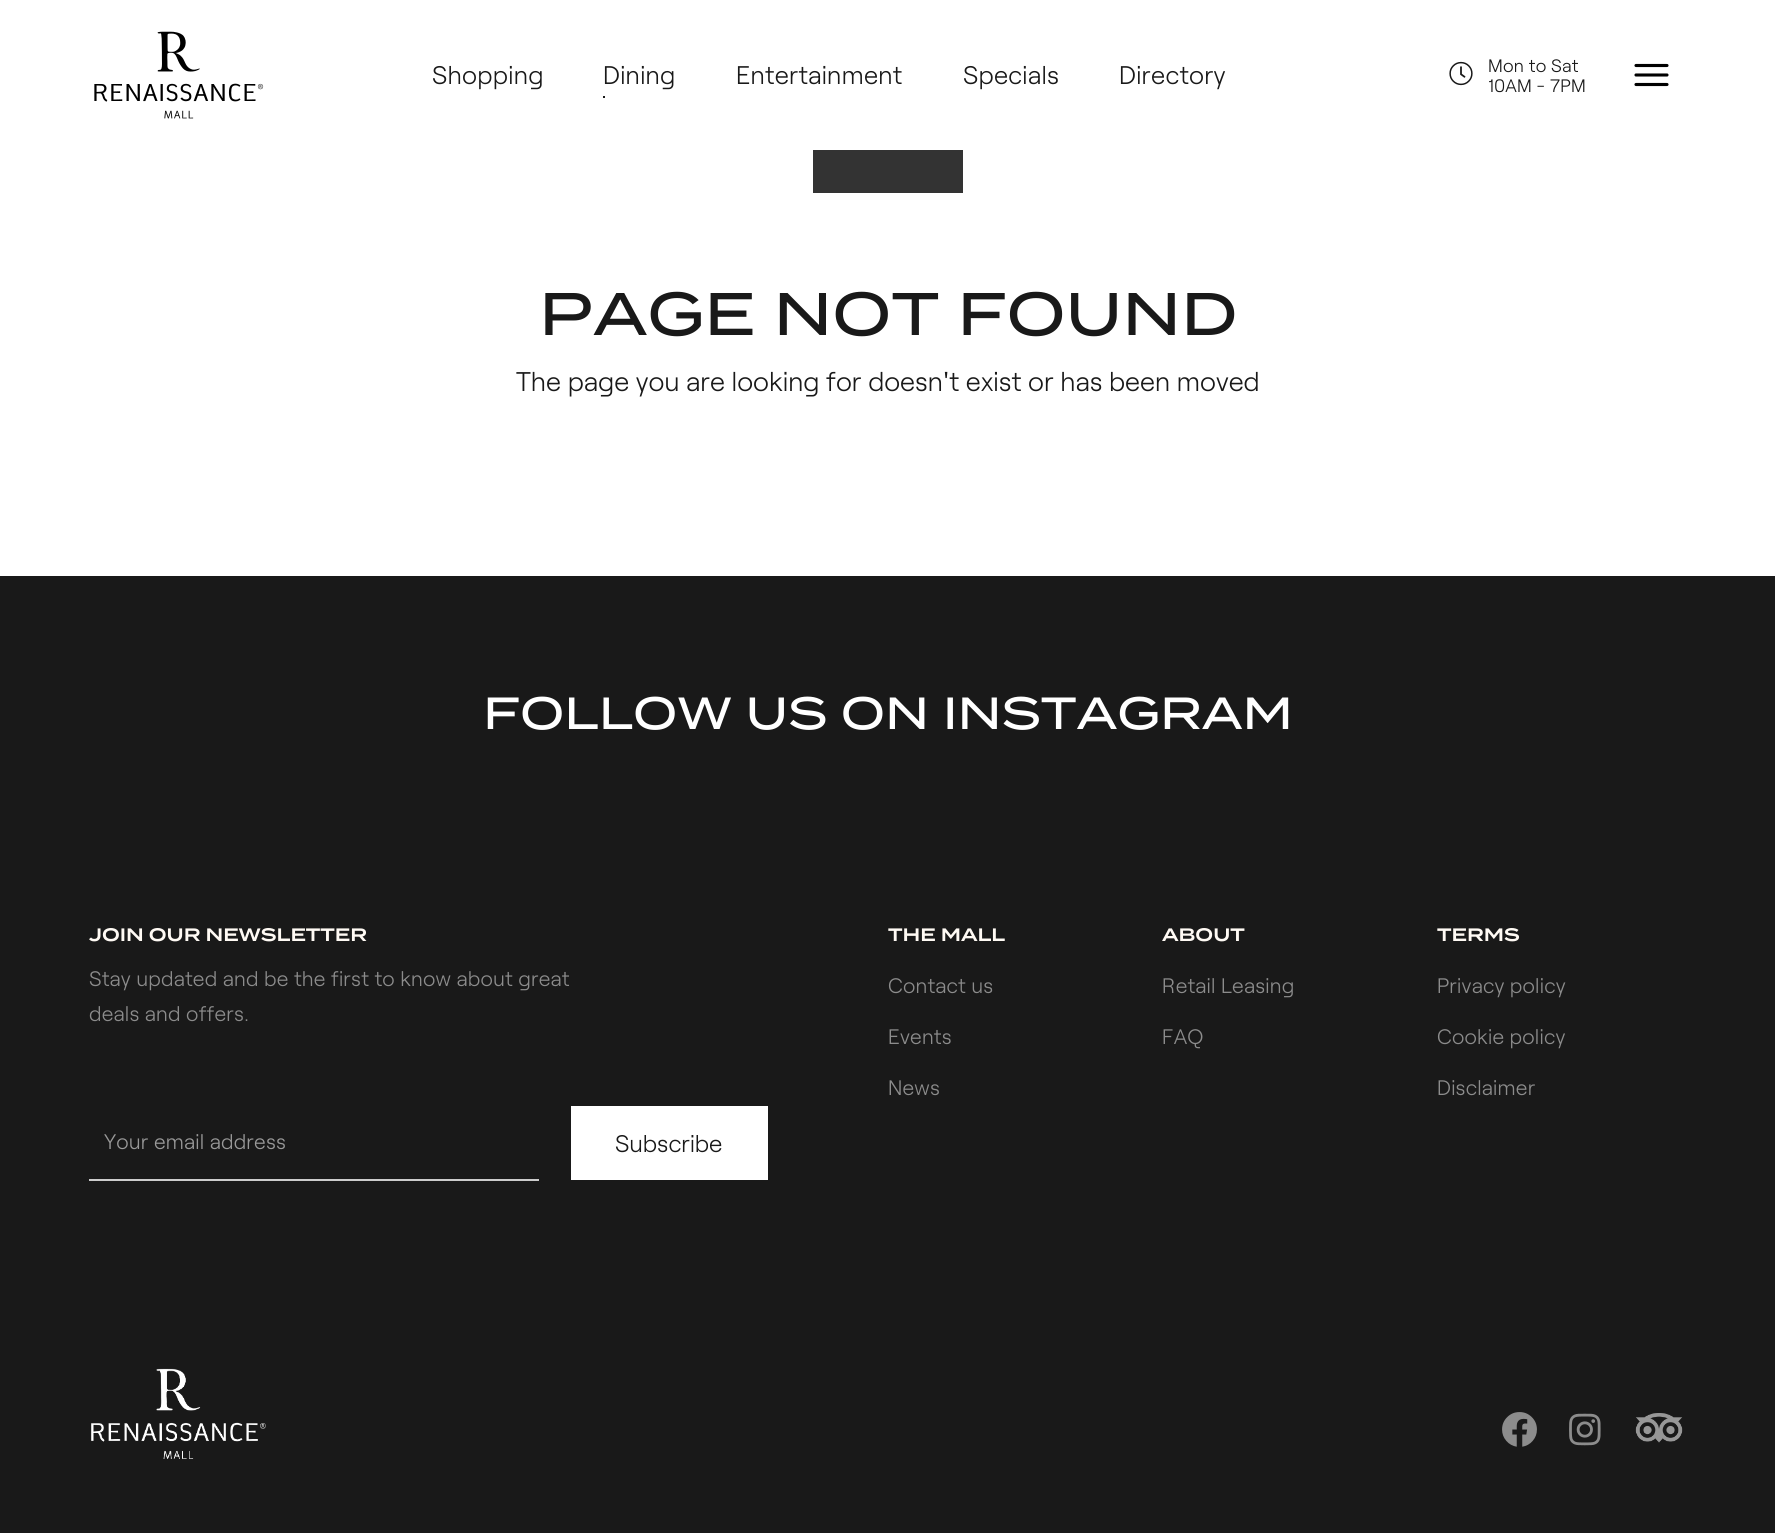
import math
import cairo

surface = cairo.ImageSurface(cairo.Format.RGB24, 1775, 1533)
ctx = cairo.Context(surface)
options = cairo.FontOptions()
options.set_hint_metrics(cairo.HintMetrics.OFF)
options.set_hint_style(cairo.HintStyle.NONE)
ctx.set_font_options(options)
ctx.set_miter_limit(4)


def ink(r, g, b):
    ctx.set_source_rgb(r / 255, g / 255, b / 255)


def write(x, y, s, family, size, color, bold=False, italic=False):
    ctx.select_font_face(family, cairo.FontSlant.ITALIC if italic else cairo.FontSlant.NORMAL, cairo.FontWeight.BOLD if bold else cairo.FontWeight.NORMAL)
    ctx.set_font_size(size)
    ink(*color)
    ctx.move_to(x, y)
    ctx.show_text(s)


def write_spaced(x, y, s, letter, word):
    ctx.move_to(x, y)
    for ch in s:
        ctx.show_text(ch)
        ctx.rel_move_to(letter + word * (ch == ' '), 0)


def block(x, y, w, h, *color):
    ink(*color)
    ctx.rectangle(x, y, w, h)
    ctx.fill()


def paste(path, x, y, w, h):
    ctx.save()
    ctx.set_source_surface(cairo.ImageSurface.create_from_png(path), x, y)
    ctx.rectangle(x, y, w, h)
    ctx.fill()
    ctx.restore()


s1 = dict(family="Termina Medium", size=60, color=(25, 25, 25))
s2 = dict(family="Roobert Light", size=27, color=(25, 25, 25))
s3 = dict(family="Termina Medium", size=45, color=(255, 255, 255))
s4 = dict(family="Termina SemiBold", size=18, color=(255, 250, 244))
s5 = dict(family="Roobert Light", size=24, color=(25, 25, 25))

ink(255, 255, 255)
ctx.paint()
ink(51, 51, 51)
ctx.set_fill_rule(cairo.FillRule.EVEN_ODD)
ctx.new_path()
ctx.move_to(813, 4)
ctx.line_to(910, 4)
ctx.line_to(963, 57)
ctx.line_to(963, 193)
ctx.line_to(813, 193)
ctx.close_path()
ctx.move_to(880, 65)
ctx.line_to(896, 65)
ctx.line_to(896, 113)
ctx.line_to(880, 113)
ctx.close_path()
ctx.move_to(880, 129)
ctx.line_to(896, 129)
ctx.line_to(896, 145)
ctx.line_to(880, 145)
ctx.close_path()
ctx.fill()
block(813, 4, 150, 146, 255, 255, 255)
paste("pic1.png", 94, 31, 170, 88)
ctx.select_font_face("Roobert Light")
ctx.set_font_size(25.5)
ink(25, 25, 25)
write_spaced(432, 84, "Shopping", 0.25, 0)
write_spaced(603, 84, "Dining", 0.25, 0)
block(603, 96, 2, 2, 25, 25, 25)
write_spaced(736, 84, "Entertainment", 0.25, 0)
write_spaced(963, 84, "Specials", 0.25, 0)
write_spaced(1119, 84, "Directory", 0.25, 0)
paste("pic2.png", 1449, 61, 24, 25)
ctx.set_font_size(18)
write_spaced(1488, 72, "Mon to Sat", 0.25, 0)
write_spaced(1488, 92, "10AM - 7PM", 0.25, 0)
ctx.new_path()
ctx.move_to(1636, 84.5)
ctx.line_to(1667, 84.5)
ctx.move_to(1636, 75)
ctx.line_to(1667, 75)
ctx.move_to(1636, 65.5)
ctx.line_to(1667, 65.5)
ink(0, 0, 0)
ctx.set_line_width(3.1)
ctx.set_line_cap(cairo.LineCap.ROUND)
ctx.stroke()
write(539, 335, "PAGE NOT FOUND", **s1)
write(516, 391, "The page you are looking for doesn't exist or has been moved", **s2)
block(0, 576, 1775, 957, 25, 25, 25)
write(483, 729, "FOLLOW US ON INSTAGRAM", **s3)
write(89, 941, "JOIN OUR NEWSLETTER", **s4)
ctx.select_font_face("Roobert Light")
ctx.set_font_size(21)
ink(140, 140, 140)
write_spaced(89, 986, "Stay updated and be the first to know about great", 0.2, 0)
write_spaced(89, 1021, "deals and offers.", 0.2, 0)
block(89, 1179, 450, 2, 204, 204, 204)
ink(153, 153, 153)
write_spaced(104, 1149, "Your email address", 0.2, 0)
block(571, 1106, 197, 74, 255, 255, 255)
write(615, 1152, "Subscribe", **s5)
write(888, 941, "THE MALL", **s4)
ctx.select_font_face("Roobert Light")
ctx.set_font_size(21)
ink(140, 140, 140)
write_spaced(888, 993, "Contact us", 0.2, 0)
write_spaced(888, 1044, "Events", 0.2, 0)
write_spaced(888, 1095, "News", 0.2, 0)
write(1162, 941, "ABOUT", **s4)
ctx.select_font_face("Roobert Light")
ctx.set_font_size(21)
ink(140, 140, 140)
write_spaced(1162, 993, "Retail Leasing", 0.2, 0)
write_spaced(1162, 1044, "FAQ", 0.2, 0)
write(1437, 941, "TERMS", **s4)
ctx.select_font_face("Roobert Light")
ctx.set_font_size(21)
ink(140, 140, 140)
write_spaced(1437, 993, "Privacy policy", 0.2, 0)
write_spaced(1437, 1044, "Cookie policy", 0.2, 0)
write_spaced(1437, 1095, "Disclaimer", 0.2, 0)
paste("pic3.png", 91, 1368, 175, 91)
paste("pic4.png", 1502, 1412, 35, 35)
paste("pic5.png", 1569, 1413, 32, 33)
paste("pic6.png", 1635, 1413, 48, 30)
surface.write_to_png("screenshot.png")
